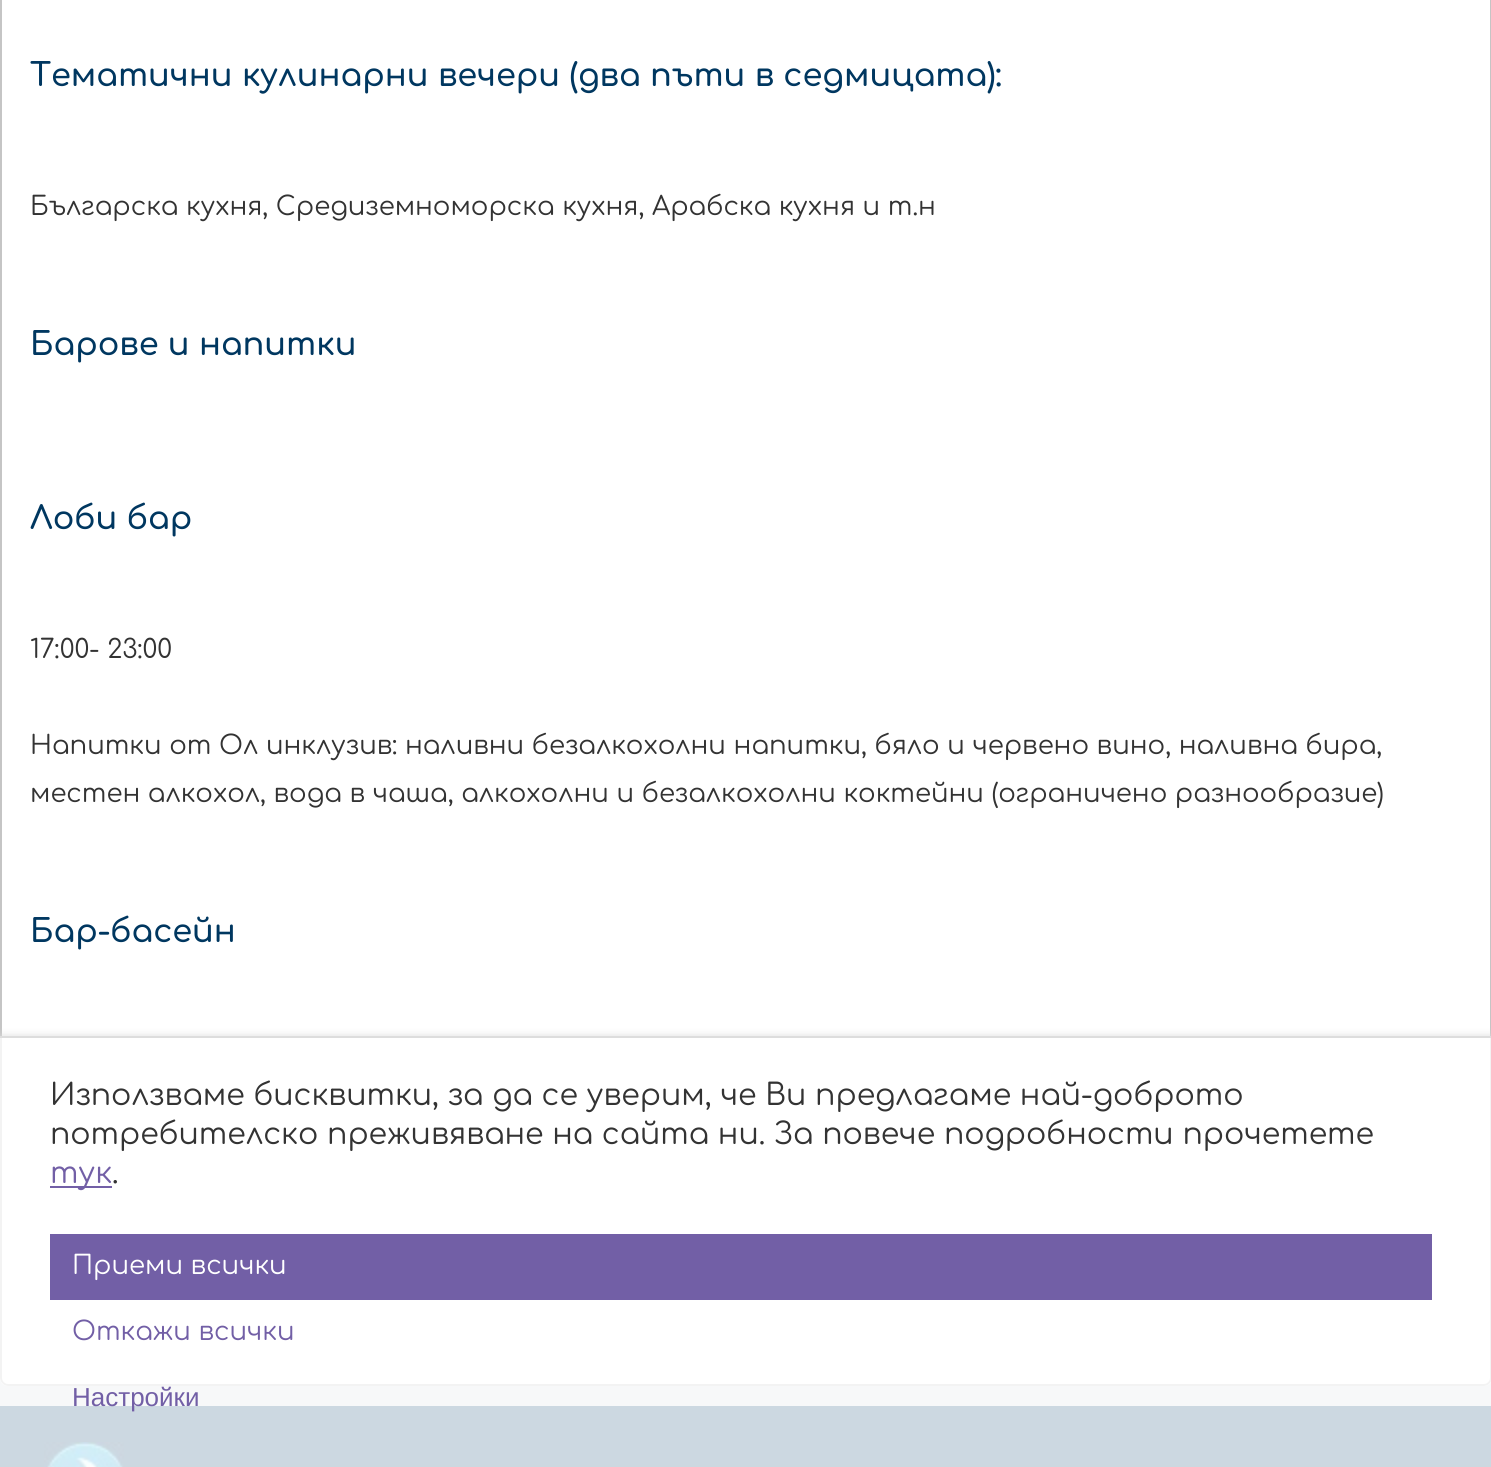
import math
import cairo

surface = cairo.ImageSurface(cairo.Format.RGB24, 1491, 1467)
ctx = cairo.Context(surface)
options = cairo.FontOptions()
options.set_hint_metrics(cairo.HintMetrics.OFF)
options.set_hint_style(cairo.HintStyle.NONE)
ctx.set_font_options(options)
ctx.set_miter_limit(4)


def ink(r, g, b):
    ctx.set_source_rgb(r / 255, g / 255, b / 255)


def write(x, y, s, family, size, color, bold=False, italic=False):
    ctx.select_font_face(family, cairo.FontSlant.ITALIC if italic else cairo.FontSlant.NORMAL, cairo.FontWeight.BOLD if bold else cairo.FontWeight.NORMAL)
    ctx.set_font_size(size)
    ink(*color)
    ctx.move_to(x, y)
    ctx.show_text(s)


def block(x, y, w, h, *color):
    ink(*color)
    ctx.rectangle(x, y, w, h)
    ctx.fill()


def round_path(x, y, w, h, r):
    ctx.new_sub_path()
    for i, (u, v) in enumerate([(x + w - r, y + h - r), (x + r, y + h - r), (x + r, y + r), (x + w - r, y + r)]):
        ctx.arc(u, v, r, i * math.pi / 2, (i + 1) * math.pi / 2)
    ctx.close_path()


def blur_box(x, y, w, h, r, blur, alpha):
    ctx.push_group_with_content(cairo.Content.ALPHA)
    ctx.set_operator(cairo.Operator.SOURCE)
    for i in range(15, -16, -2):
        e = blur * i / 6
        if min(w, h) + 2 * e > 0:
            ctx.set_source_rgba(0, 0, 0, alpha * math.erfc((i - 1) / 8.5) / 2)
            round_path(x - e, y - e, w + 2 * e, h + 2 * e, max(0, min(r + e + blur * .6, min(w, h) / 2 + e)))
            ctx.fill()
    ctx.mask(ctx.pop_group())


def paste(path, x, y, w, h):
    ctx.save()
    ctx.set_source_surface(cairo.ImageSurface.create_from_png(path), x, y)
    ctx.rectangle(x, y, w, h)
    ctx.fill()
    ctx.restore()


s1 = dict(family="Comfortaa SemiBold", size=32, color=(0, 55, 96))
s2 = dict(family="Comfortaa", size=26, color=(51, 51, 51))
s3 = dict(family="Comfortaa", size=30, color=(51, 51, 51))
s4 = dict(family="Comfortaa", size=30, color=(114, 95, 166))
s5 = dict(family="Comfortaa", size=26, color=(255, 255, 255))
s6 = dict(family="Comfortaa", size=26, color=(114, 95, 166))
s7 = dict(family="Liberation Sans", size=26, color=(114, 95, 166))

ink(217, 222, 227)
ctx.paint()
ink(255, 255, 255)
ctx.new_path()
ctx.move_to(0, -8)
ctx.line_to(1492, -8)
ctx.line_to(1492, 1378)
ctx.curve_to(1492, 1382.5, 1488.5, 1386, 1484, 1386)
ctx.line_to(8, 1386)
ctx.curve_to(3.5, 1386, 0, 1382.5, 0, 1378)
ctx.close_path()
ctx.fill()
ink(197, 197, 197)
ctx.set_fill_rule(cairo.FillRule.EVEN_ODD)
ctx.new_path()
ctx.move_to(0, -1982)
ctx.line_to(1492, -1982)
ctx.line_to(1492, 1378)
ctx.curve_to(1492, 1382, 1488, 1386, 1484, 1386)
ctx.line_to(8, 1386)
ctx.curve_to(4, 1386, 0, 1382, 0, 1378)
ctx.close_path()
ctx.move_to(2, -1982)
ctx.line_to(1490, -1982)
ctx.line_to(1490, 1378)
ctx.curve_to(1490, 1381, 1487, 1384, 1484, 1384)
ctx.line_to(8, 1384)
ctx.curve_to(5, 1384, 2, 1381, 2, 1378)
ctx.close_path()
ctx.fill()
write(30, 86, "Тематични кулинарни вечери (два пъти в седмицата):", **s1)
write(30, 215, "Българска кухня, Средиземноморска кухня, Арабска кухня и т.н", **s2)
write(30, 355, "Барове и напитки", **s1)
write(30, 529, "Лоби бар", **s1)
write(30, 658, "17:00- 23:00", **s2)
write(30, 754, "Напитки от Ол инклузив: наливни безалкохолни напитки, бяло и червено вино, наливна бира,", **s2)
write(30, 802, "местен алкохол, вода в чаша, алкохолни и безалкохолни коктейни (ограничено разнообразие)", **s2)
write(30, 942, "Бар-басейн", **s1)
gradient = cairo.LinearGradient(746, 1406, 746, 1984)
gradient.add_color_stop_rgba(0, 0, 0.231, 0.408, 1)
gradient.add_color_stop_rgba(1, 0, 0.196, 0.349, 1)
ctx.set_source(gradient)
ctx.rectangle(0, 1406, 1491, 61)
ctx.fill()
paste("pic1.png", 44, 1442, 80, 25)
ctx.save()
ctx.set_fill_rule(cairo.FillRule.WINDING)
ctx.rectangle(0, 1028, 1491, 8)
ctx.clip()
ink(221, 221, 221)
blur_box(0, 1036, 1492, 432, 0, 4, 1)
ctx.restore()
block(0, 1036, 1491, 2, 221, 221, 221)
ctx.set_source_rgba(1, 1, 1, 0.8)
ctx.rectangle(0, 1038, 1491, 429)
ctx.fill()
write(50, 1105, "Използваме бисквитки, за да се уверим, че Ви предлагаме най-доброто", **s3)
write(50, 1144, "потребителско преживяване на сайта ни. За повече подробности прочетете", **s3)
block(50, 1186, 62, 2, 114, 95, 166)
write(50, 1183, "тук", **s4)
write(112, 1183, ".", **s3)
block(50, 1234, 1382, 66, 114, 95, 166)
write(72, 1274, "Приеми всички", **s5)
write(72, 1340, "Откажи всички", **s6)
write(72, 1406, "Настройки", **s7)
surface.write_to_png("screenshot.png")
